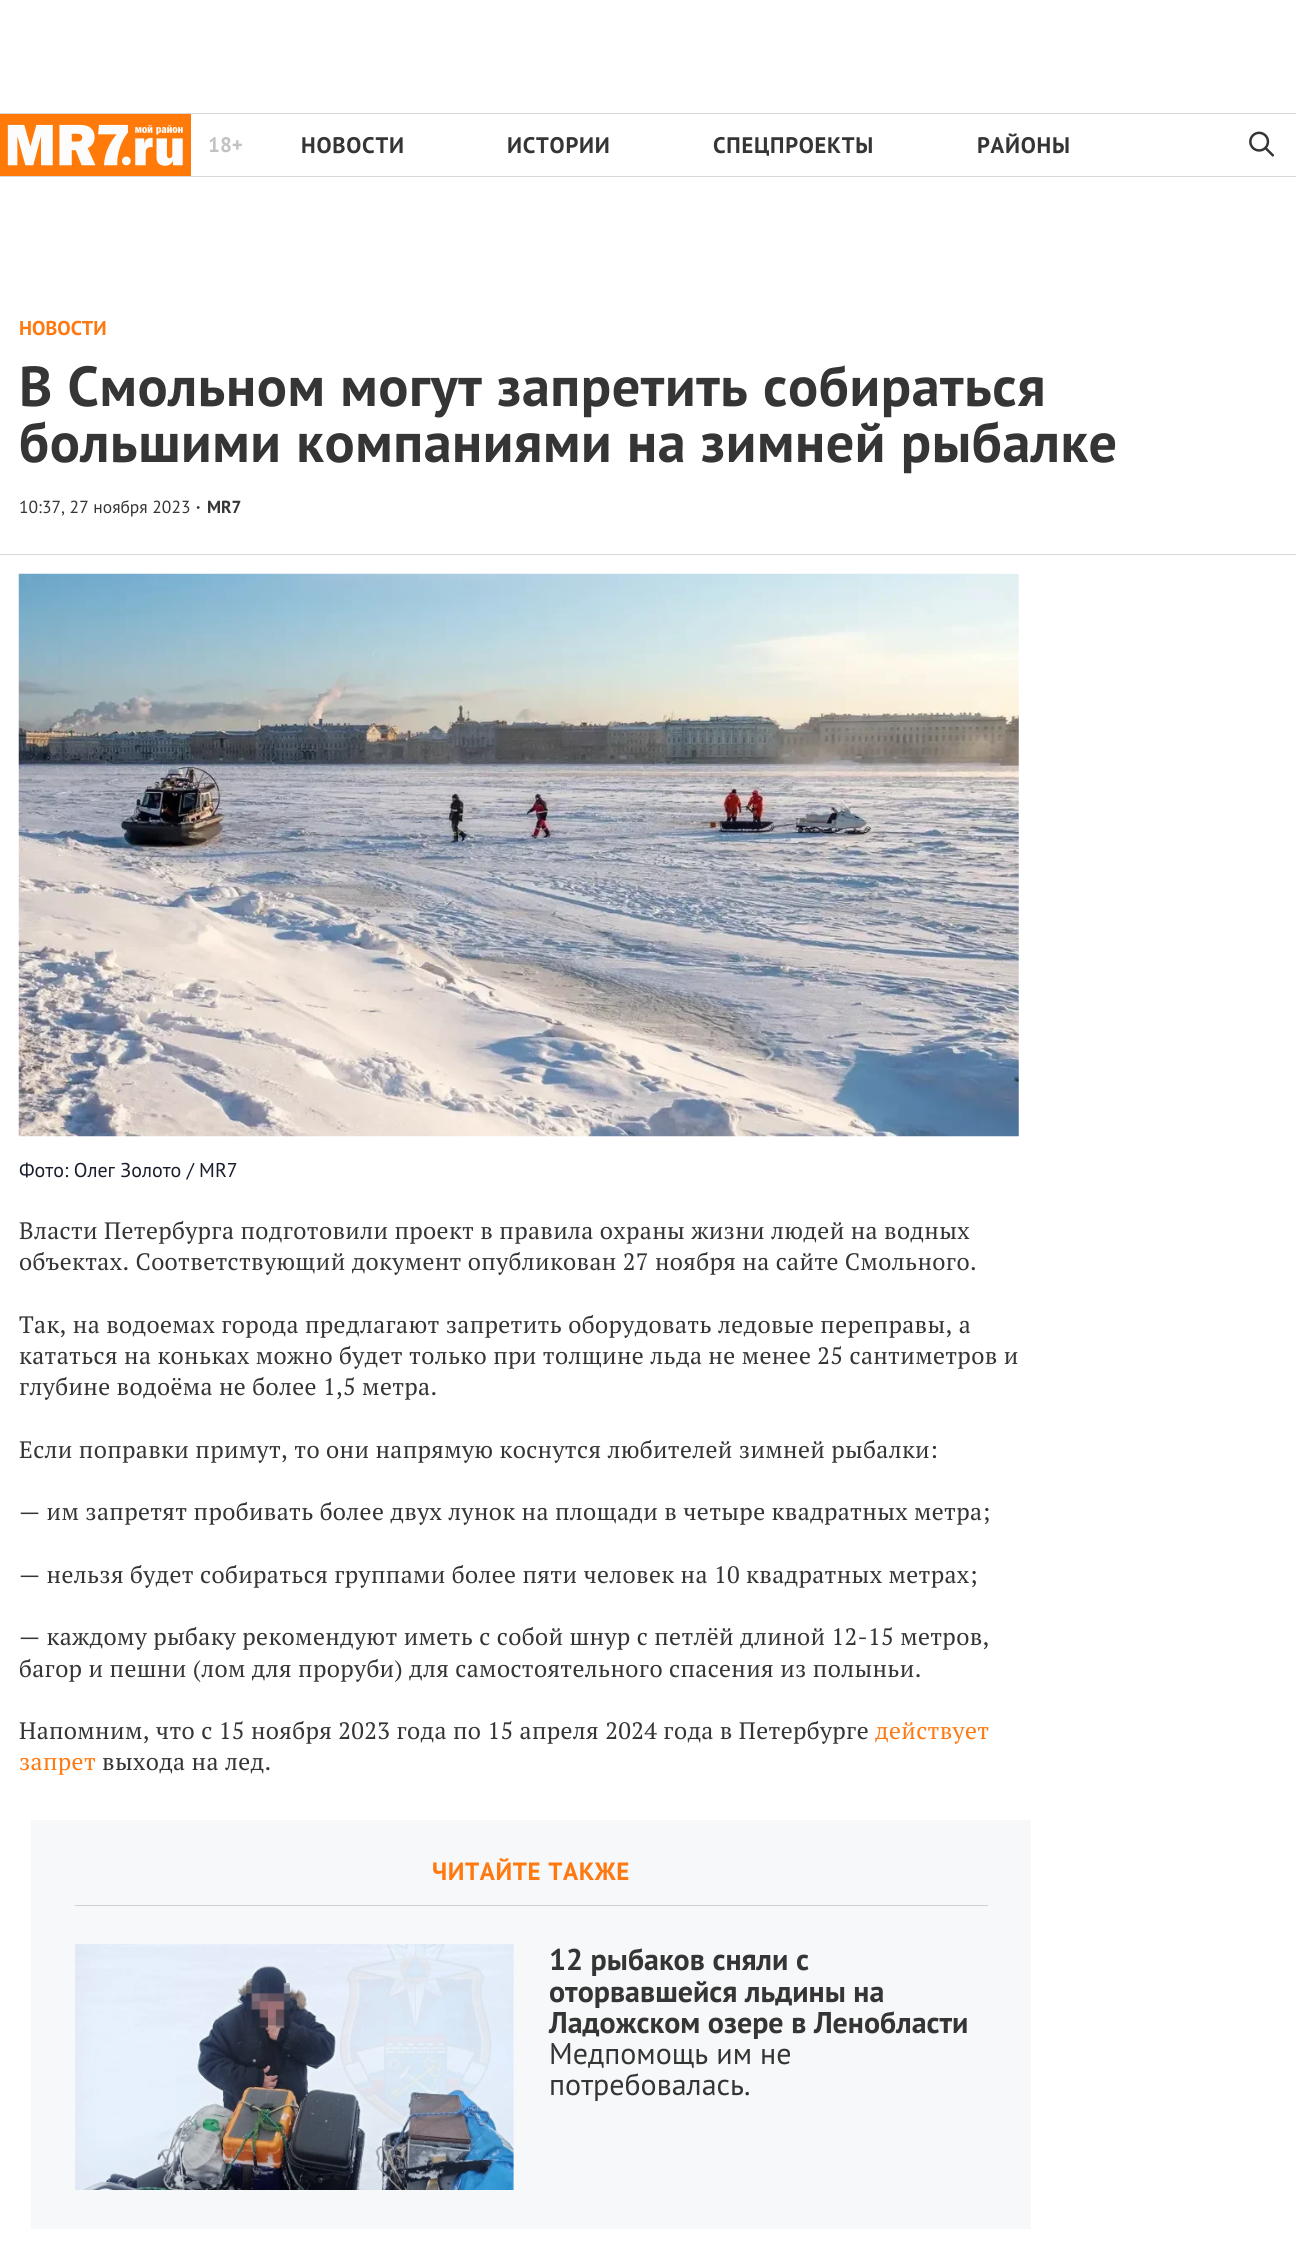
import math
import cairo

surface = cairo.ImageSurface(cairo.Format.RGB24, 1296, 2243)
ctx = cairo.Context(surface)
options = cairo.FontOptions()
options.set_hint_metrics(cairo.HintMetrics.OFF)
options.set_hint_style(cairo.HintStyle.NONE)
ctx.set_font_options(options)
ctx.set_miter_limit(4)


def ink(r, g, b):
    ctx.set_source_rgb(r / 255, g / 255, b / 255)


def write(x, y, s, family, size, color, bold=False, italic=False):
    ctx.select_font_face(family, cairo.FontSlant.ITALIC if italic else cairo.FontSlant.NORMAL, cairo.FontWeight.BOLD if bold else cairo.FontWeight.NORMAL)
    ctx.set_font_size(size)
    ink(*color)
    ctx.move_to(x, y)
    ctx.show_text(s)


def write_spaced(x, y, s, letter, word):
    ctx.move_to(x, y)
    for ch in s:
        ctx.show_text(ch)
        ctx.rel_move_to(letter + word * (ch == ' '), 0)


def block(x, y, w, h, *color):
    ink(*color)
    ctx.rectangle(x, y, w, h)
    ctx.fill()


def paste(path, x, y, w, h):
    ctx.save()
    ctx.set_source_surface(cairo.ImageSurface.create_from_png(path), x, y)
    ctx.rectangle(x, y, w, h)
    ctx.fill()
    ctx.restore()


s1 = dict(family="PT Sans", size=21, color=(194, 194, 194), bold=True)
s2 = dict(family="PT Sans", size=20, color=(255, 121, 17), bold=True)
s3 = dict(family="PT Sans", size=17.5, color=(53, 53, 53))
s4 = dict(family="PT Sans", size=17.5, color=(53, 53, 53), bold=True)
s5 = dict(family="PT Sans", size=20, color=(24, 30, 44))
s6 = dict(family="PT Sans", size=30, color=(53, 53, 53), bold=True)
s7 = dict(family="PT Sans", size=30, color=(53, 53, 53))

ink(255, 255, 255)
ctx.paint()
block(0, 113, 1296, 1, 215, 215, 215)
block(0, 176, 1296, 1, 215, 215, 215)
paste("pic1.png", 0, 114, 191, 62)
write(208, 152, "18+", **s1)
ctx.set_font_size(22.5)
ink(53, 53, 53)
write_spaced(301, 153, "НОВОСТИ", 0.75, 0)
write_spaced(507, 153, "ИСТОРИИ", 0.75, 0)
write_spaced(713, 153, "СПЕЦПРОЕКТЫ", 0.75, 0)
write_spaced(977, 153, "РАЙОНЫ", 0.75, 0)
paste("pic2.png", 1249, 131, 26, 26)
block(0, 554, 1296, 1, 215, 215, 215)
write(19, 335, "НОВОСТИ", **s2)
ctx.set_font_size(56.25)
ink(53, 53, 53)
write_spaced(19, 406, "В Смольном могут запретить собираться", 0.55, 0)
write_spaced(19, 462, "большими компаниями на зимней рыбалке", 0.55, 0)
write(19, 513, "10:37, 27 ноября 2023", **s3)
write(196, 513, "·", **s4)
write(207, 513, "MR7", **s4)
paste("pic3.png", 18, 573, 1001, 564)
write(19, 1177, "Фото: Олег Золото / MR7", **s5)
ctx.select_font_face("PT Serif")
ctx.set_font_size(23.75)
ink(53, 53, 53)
write_spaced(19, 1239, "Власти Петербурга подготовили проект в правила охраны жизни людей на водных", 0.35, 0)
write_spaced(19, 1270, "объектах. Соответствующий документ опубликован 27 ноября на сайте Смольного.", 0.35, 0)
write_spaced(19, 1333, "Так, на водоемах города предлагают запретить оборудовать ледовые переправы, а", 0.35, 0)
write_spaced(19, 1364, "кататься на коньках можно будет только при толщине льда не менее 25 сантиметров и", 0.35, 0)
write_spaced(19, 1395, "глубине водоёма не более 1,5 метра.", 0.35, 0)
write_spaced(19, 1458, "Если поправки примут, то они напрямую коснутся любителей зимней рыбалки:", 0.35, 0)
write_spaced(19, 1520, "— им запретят пробивать более двух лунок на площади в четыре квадратных метра;", 0.35, 0)
write_spaced(19, 1583, "— нельзя будет собираться группами более пяти человек на 10 квадратных метрах;", 0.35, 0)
write_spaced(19, 1645, "— каждому рыбаку рекомендуют иметь с собой шнур с петлёй длиной 12-15 метров,", 0.35, 0)
write_spaced(19, 1677, "багор и пешни (лом для проруби) для самостоятельного спасения из полыньи.", 0.35, 0)
write_spaced(19, 1739, "Напомним, что с 15 ноября 2023 года по 15 апреля 2024 года в Петербурге", 0.35, 0)
ink(255, 121, 17)
write_spaced(875, 1739, "действует", 0.35, 0)
write_spaced(19, 1770, "запрет", 0.35, 0)
ink(53, 53, 53)
write_spaced(102, 1770, "выхода на лед.", 0.35, 0)
block(31, 1820, 1000, 409, 247, 248, 249)
block(75, 1905, 913, 1, 208, 209, 210)
ctx.select_font_face("PT Sans", cairo.FontSlant.NORMAL, cairo.FontWeight.BOLD)
ctx.set_font_size(25)
ink(255, 121, 17)
write_spaced(432, 1880, "ЧИТАЙТЕ ТАКЖЕ", 0.6, 0)
paste("pic4.png", 75, 1944, 439, 246)
write(549, 1970, "12 рыбаков сняли с", **s6)
write(549, 2002, "оторвавшейся льдины на", **s6)
write(549, 2033, "Ладожском озере в Ленобласти", **s6)
write(549, 2064, "Медпомощь им не", **s7)
write(549, 2095, "потребовалась.", **s7)
surface.write_to_png("screenshot.png")
